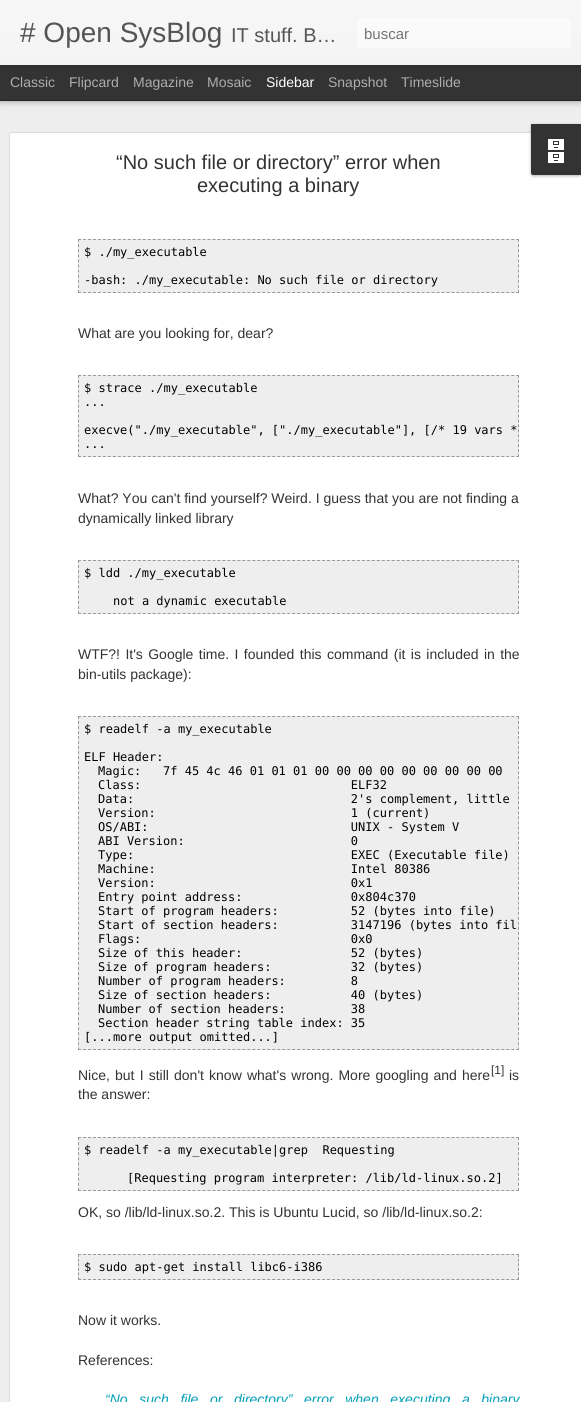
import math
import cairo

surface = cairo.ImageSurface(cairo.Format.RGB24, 581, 1402)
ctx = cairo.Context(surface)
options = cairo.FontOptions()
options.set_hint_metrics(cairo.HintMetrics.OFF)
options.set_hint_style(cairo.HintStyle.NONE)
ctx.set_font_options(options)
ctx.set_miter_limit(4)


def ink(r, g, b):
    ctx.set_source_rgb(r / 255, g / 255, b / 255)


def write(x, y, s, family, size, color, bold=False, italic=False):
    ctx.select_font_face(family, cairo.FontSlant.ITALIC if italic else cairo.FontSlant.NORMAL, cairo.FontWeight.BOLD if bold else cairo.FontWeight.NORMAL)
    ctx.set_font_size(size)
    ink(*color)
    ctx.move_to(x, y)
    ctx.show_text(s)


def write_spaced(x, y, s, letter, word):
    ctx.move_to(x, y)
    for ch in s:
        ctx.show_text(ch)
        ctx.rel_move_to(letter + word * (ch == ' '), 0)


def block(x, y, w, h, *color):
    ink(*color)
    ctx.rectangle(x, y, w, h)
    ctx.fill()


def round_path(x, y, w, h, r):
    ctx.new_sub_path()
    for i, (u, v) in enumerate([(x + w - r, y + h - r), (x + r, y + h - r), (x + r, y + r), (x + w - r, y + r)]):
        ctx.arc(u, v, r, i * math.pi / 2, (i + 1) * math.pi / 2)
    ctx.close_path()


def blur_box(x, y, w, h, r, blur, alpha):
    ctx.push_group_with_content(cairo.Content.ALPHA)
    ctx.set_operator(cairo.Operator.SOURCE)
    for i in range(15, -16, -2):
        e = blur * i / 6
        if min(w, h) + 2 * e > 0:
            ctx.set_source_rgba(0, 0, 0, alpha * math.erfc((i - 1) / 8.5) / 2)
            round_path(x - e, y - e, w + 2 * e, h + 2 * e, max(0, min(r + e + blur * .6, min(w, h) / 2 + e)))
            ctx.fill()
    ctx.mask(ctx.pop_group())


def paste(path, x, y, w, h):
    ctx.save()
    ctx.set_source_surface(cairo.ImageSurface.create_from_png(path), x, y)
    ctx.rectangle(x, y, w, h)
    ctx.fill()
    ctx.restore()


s1 = dict(family="Liberation Sans", size=28, color=(85, 85, 85))
s2 = dict(family="Liberation Sans", size=20, color=(85, 85, 85))
s3 = dict(family="Liberation Sans", size=15, color=(117, 117, 117))
s4 = dict(family="Liberation Sans", size=14, color=(173, 173, 173))
s5 = dict(family="Liberation Sans", size=14, color=(255, 255, 255))
s6 = dict(family="Liberation Sans", size=20, color=(51, 51, 51))
s7 = dict(family="DejaVu Sans Mono", size=12, color=(0, 0, 0))
s8 = dict(family="Liberation Sans", size=14, color=(51, 51, 51))
s9 = dict(family="Liberation Sans", size=12, color=(51, 51, 51))

ink(51, 51, 51)
ctx.paint()
block(0, 101, 581, 1301, 238, 238, 238)
ink(0, 0, 0)
blur_box(0, 65, 581, 35, 0, 4, 0.5)
block(0, 65, 581, 35, 51, 51, 51)
ink(0, 0, 0)
blur_box(0, 0, 581, 65, 0, 2.5, 0.3)
gradient = cairo.LinearGradient(0, 0, 0, 65)
gradient.add_color_stop_rgba(0, 0.969, 0.969, 0.969, 1)
gradient.add_color_stop_rgba(1, 0.957, 0.957, 0.957, 1)
ctx.set_source(gradient)
ctx.rectangle(0, 0, 581, 65)
ctx.fill()
write(20, 42, "# Open SysBlog", **s1)
write(231, 42, "IT stuff. B…", **s2)
ink(250, 250, 250)
round_path(357, 18, 214, 30, 3)
ctx.fill()
write(364, 39, "buscar", **s3)
write(10, 87, "Classic", **s4)
write(69, 87, "Flipcard", **s4)
write(133, 87, "Magazine", **s4)
write(207, 87, "Mosaic", **s4)
write(266, 87, "Sidebar", **s5)
write(328, 87, "Snapshot", **s4)
write(401, 87, "Timeslide", **s4)
block(8, 131, 573, 1271, 255, 255, 255)
paste("pic1.png", 8, 131, 523, 1271)
write(116, 169, "“No such file or directory” error when", **s6)
write(197, 192, "executing a binary", **s6)
block(78, 239, 441, 54, 238, 238, 238)
ctx.new_path()
ctx.move_to(78, 239.5)
ctx.line_to(519, 239.5)
ink(153, 153, 153)
ctx.set_line_width(1)
ctx.set_dash([3, 1.98])
ctx.stroke()
ctx.new_path()
ctx.move_to(518.5, 239)
ctx.line_to(518.5, 293)
ctx.set_dash([3, 2.1])
ctx.stroke()
ctx.new_path()
ctx.move_to(78, 292.5)
ctx.line_to(519, 292.5)
ctx.set_dash([3, 1.98])
ctx.stroke()
ctx.new_path()
ctx.move_to(78.5, 239)
ctx.line_to(78.5, 293)
ctx.set_dash([3, 2.1])
ctx.stroke()
write(84, 256, "$ ./my_executable", **s7)
write(84, 284, "-bash: ./my_executable: No such file or directory", **s7)
write(78, 338, "What are you looking for, dear?", **s8)
block(78, 375, 441, 82, 238, 238, 238)
ctx.new_path()
ctx.move_to(78, 375.5)
ctx.line_to(519, 375.5)
ink(153, 153, 153)
ctx.set_dash([3, 1.98])
ctx.stroke()
ctx.new_path()
ctx.move_to(518.5, 375)
ctx.line_to(518.5, 457)
ctx.set_dash([3, 1.94])
ctx.stroke()
ctx.new_path()
ctx.move_to(78, 456.5)
ctx.line_to(519, 456.5)
ctx.set_dash([3, 1.98])
ctx.stroke()
ctx.new_path()
ctx.move_to(78.5, 375)
ctx.line_to(78.5, 457)
ctx.set_dash([3, 1.94])
ctx.stroke()
write(84, 392, "$ strace ./my_executable", **s7)
write(84, 406, "...", **s7)
write(84, 434, "execve(\"./my_executable\", [\"./my_executable\"], [/* 19 vars *", **s7)
write(84, 448, "...", **s7)
write(78, 503, "What? You can't find yourself? Weird. I guess that you are not finding a", **s8)
write(78, 523, "dynamically linked library", **s8)
block(78, 560, 441, 54, 238, 238, 238)
ctx.new_path()
ctx.move_to(78, 560.5)
ctx.line_to(519, 560.5)
ink(153, 153, 153)
ctx.set_dash([3, 1.98])
ctx.stroke()
ctx.new_path()
ctx.move_to(518.5, 560)
ctx.line_to(518.5, 614)
ctx.set_dash([3, 2.1])
ctx.stroke()
ctx.new_path()
ctx.move_to(78, 613.5)
ctx.line_to(519, 613.5)
ctx.set_dash([3, 1.98])
ctx.stroke()
ctx.new_path()
ctx.move_to(78.5, 560)
ctx.line_to(78.5, 614)
ctx.set_dash([3, 2.1])
ctx.stroke()
write(84, 577, "$ ldd ./my_executable", **s7)
write(113, 605, "not a dynamic executable", **s7)
ctx.select_font_face("Liberation Sans")
ctx.set_font_size(14)
ink(51, 51, 51)
write_spaced(78, 659, "WTF?! It's Google time. I founded this command (it is included in the", 0, 1.5)
write(78, 679, "bin-utils package):", **s8)
block(78, 716, 441, 334, 238, 238, 238)
ctx.new_path()
ctx.move_to(78, 716.5)
ctx.line_to(519, 716.5)
ink(153, 153, 153)
ctx.set_dash([3, 1.98])
ctx.stroke()
ctx.new_path()
ctx.move_to(518.5, 716)
ctx.line_to(518.5, 1050)
ctx.set_dash([3, 2.02])
ctx.stroke()
ctx.new_path()
ctx.move_to(78, 1049.5)
ctx.line_to(519, 1049.5)
ctx.set_dash([3, 1.98])
ctx.stroke()
ctx.new_path()
ctx.move_to(78.5, 716)
ctx.line_to(78.5, 1050)
ctx.set_dash([3, 2.02])
ctx.stroke()
write(84, 733, "$ readelf -a my_executable", **s7)
write(84, 761, "ELF Header:", **s7)
write(98, 775, "Magic:   7f 45 4c 46 01 01 01 00 00 00 00 00 00 00 00 00", **s7)
write(98, 789, "Class:                             ELF32", **s7)
write(98, 803, "Data:                              2's complement, little", **s7)
write(98, 817, "Version:                           1 (current)", **s7)
write(98, 831, "OS/ABI:                            UNIX - System V", **s7)
write(98, 845, "ABI Version:                       0", **s7)
write(98, 859, "Type:                              EXEC (Executable file)", **s7)
write(98, 873, "Machine:                           Intel 80386", **s7)
write(98, 887, "Version:                           0x1", **s7)
write(98, 901, "Entry point address:               0x804c370", **s7)
write(98, 915, "Start of program headers:          52 (bytes into file)", **s7)
write(98, 929, "Start of section headers:          3147196 (bytes into fil", **s7)
write(98, 943, "Flags:                             0x0", **s7)
write(98, 957, "Size of this header:               52 (bytes)", **s7)
write(98, 971, "Size of program headers:           32 (bytes)", **s7)
write(98, 985, "Number of program headers:         8", **s7)
write(98, 999, "Size of section headers:           40 (bytes)", **s7)
write(98, 1013, "Number of section headers:         38", **s7)
write(98, 1027, "Section header string table index: 35", **s7)
write(84, 1041, "[...more output omitted...]", **s7)
ctx.select_font_face("Liberation Sans")
ctx.set_font_size(14)
ink(51, 51, 51)
write_spaced(78, 1080, "Nice, but I still don't know what's wrong. More googling and here", 0, 1.25)
write(491, 1074, "[1]", **s9)
write(509, 1080, "is", **s8)
write(78, 1099, "the answer:", **s8)
block(78, 1137, 441, 54, 238, 238, 238)
ctx.new_path()
ctx.move_to(78, 1137.5)
ctx.line_to(519, 1137.5)
ink(153, 153, 153)
ctx.set_dash([3, 1.98])
ctx.stroke()
ctx.new_path()
ctx.move_to(518.5, 1137)
ctx.line_to(518.5, 1191)
ctx.set_dash([3, 2.1])
ctx.stroke()
ctx.new_path()
ctx.move_to(78, 1190.5)
ctx.line_to(519, 1190.5)
ctx.set_dash([3, 1.98])
ctx.stroke()
ctx.new_path()
ctx.move_to(78.5, 1137)
ctx.line_to(78.5, 1191)
ctx.set_dash([3, 2.1])
ctx.stroke()
write(84, 1154, "$ readelf -a my_executable|grep  Requesting", **s7)
write(127, 1182, "[Requesting program interpreter: /lib/ld-linux.so.2]", **s7)
write(78, 1217, "OK, so /lib/ld-linux.so.2. This is Ubuntu Lucid, so /lib/ld-linux.so.2:", **s8)
block(78, 1254, 441, 26, 238, 238, 238)
ctx.new_path()
ctx.move_to(78, 1254.5)
ctx.line_to(519, 1254.5)
ink(153, 153, 153)
ctx.set_dash([3, 1.98])
ctx.stroke()
ctx.new_path()
ctx.move_to(518.5, 1254)
ctx.line_to(518.5, 1280)
ctx.set_dash([3, 1.6])
ctx.stroke()
ctx.new_path()
ctx.move_to(78, 1279.5)
ctx.line_to(519, 1279.5)
ctx.set_dash([3, 1.98])
ctx.stroke()
ctx.new_path()
ctx.move_to(78.5, 1254)
ctx.line_to(78.5, 1280)
ctx.set_dash([3, 1.6])
ctx.stroke()
write(84, 1271, "$ sudo apt-get install libc6-i386", **s7)
write(78, 1325, "Now it works.", **s8)
write(78, 1365, "References:", **s8)
ctx.select_font_face("Liberation Sans", cairo.FontSlant.ITALIC)
ink(0, 158, 184)
write_spaced(105, 1404, "“No such file or directory” error when executing a binary", 0, 7.75)
ink(0, 0, 0)
blur_box(531, 125, 50, 51, 2, 1.5, 0.3)
ink(51, 51, 51)
ctx.new_path()
ctx.move_to(531, 124)
ctx.line_to(581, 124)
ctx.line_to(581, 175)
ctx.line_to(533, 175)
ctx.curve_to(532, 175, 531, 174, 531, 173)
ctx.close_path()
ctx.fill()
paste("pic2.png", 548, 139, 16, 24)
surface.write_to_png("screenshot.png")
